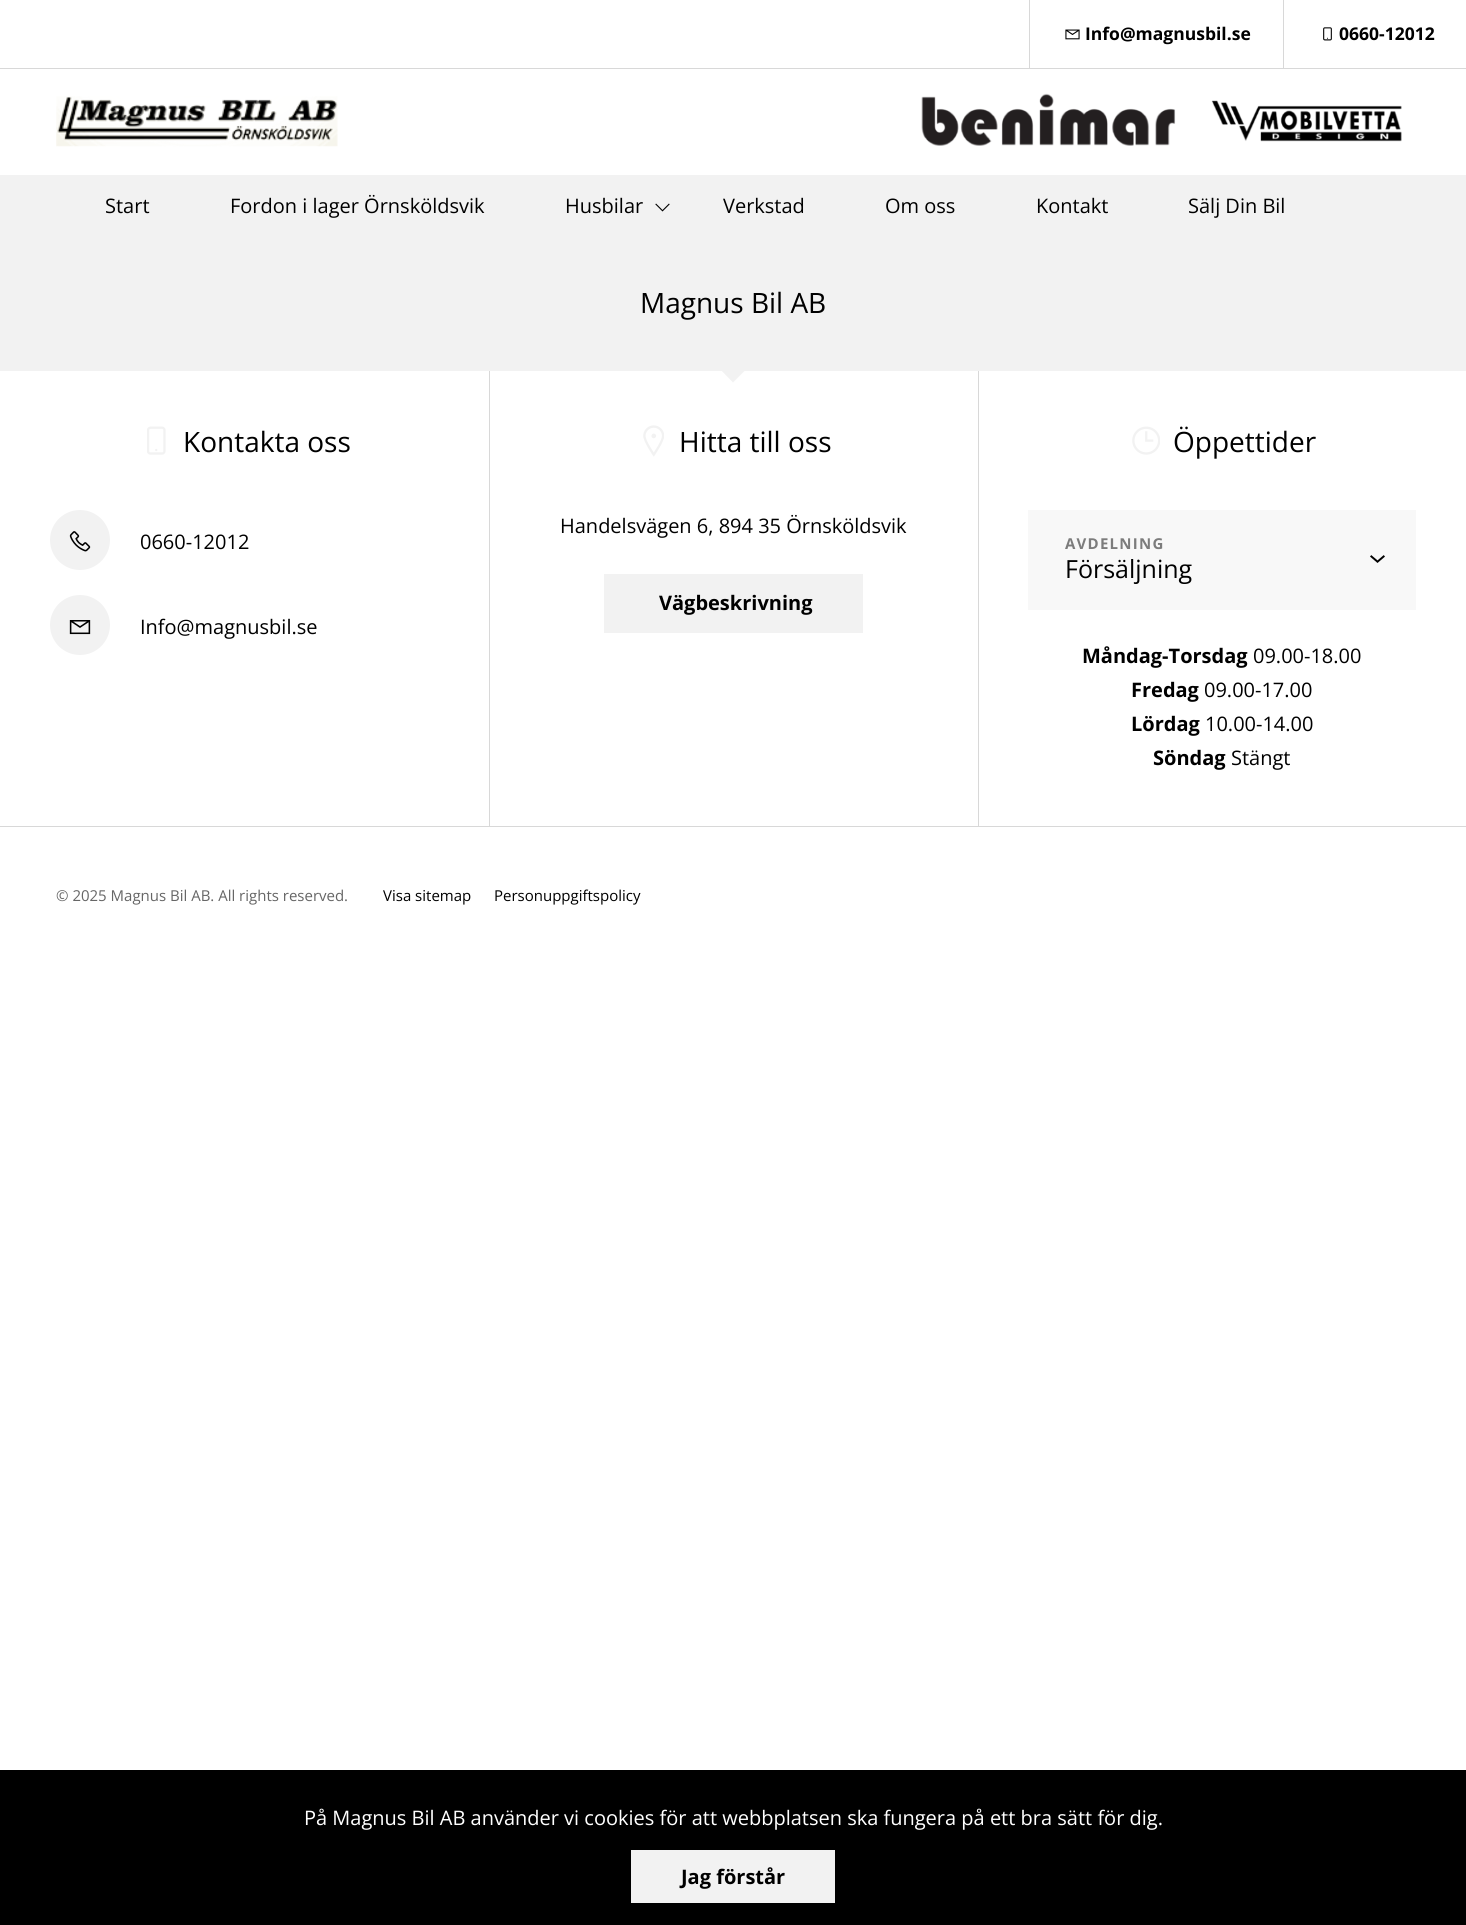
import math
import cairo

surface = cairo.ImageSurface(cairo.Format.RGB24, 1466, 1925)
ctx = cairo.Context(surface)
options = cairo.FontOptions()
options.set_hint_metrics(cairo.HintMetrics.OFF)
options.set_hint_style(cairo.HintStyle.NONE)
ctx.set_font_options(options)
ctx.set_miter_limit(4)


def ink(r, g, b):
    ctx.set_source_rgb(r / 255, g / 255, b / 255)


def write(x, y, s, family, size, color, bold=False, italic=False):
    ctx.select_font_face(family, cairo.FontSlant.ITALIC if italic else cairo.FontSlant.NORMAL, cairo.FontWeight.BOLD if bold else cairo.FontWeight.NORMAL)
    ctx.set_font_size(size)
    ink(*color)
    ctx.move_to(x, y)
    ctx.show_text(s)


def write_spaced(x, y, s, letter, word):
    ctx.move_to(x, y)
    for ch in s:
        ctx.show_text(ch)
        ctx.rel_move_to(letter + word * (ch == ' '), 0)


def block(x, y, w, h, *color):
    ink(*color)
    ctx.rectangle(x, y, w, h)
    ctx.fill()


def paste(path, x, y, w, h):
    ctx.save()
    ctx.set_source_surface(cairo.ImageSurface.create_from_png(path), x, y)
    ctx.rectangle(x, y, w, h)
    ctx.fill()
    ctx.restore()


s1 = dict(family="Open Sans", size=17.5, color=(0, 0, 0), bold=True)
s2 = dict(family="Open Sans", size=20, color=(0, 0, 0))
s3 = dict(family="Open Sans", size=28, color=(0, 0, 0))
s4 = dict(family="Open Sans", size=20, color=(0, 0, 0), bold=True)
s5 = dict(family="Open Sans", size=25, color=(0, 0, 0))
s6 = dict(family="Open Sans", size=15, color=(102, 102, 102))
s7 = dict(family="Open Sans", size=15, color=(0, 0, 0))
s8 = dict(family="Open Sans", size=20, color=(255, 255, 255))

ink(255, 255, 255)
ctx.paint()
block(0, 68, 1466, 1, 216, 216, 216)
block(1029, 0, 1, 68, 216, 216, 216)
paste("pic1.png", 1065, 29, 15, 11)
write(1085, 40, "Info@magnusbil.se", **s1)
block(1283, 0, 1, 68, 216, 216, 216)
paste("pic2.png", 1323, 27, 9, 14)
write(1339, 40, "0660-12012", **s1)
paste("pic3.png", 56, 96, 282, 51)
paste("pic4.png", 921, 93, 255, 53)
paste("pic5.png", 1211, 100, 191, 42)
block(0, 175, 1466, 196, 242, 242, 242)
write(105, 213, "Start", **s2)
write(230, 213, "Fordon i lager Örnsköldsvik", **s2)
write(565, 213, "Husbilar", **s2)
paste("pic6.png", 655, 203, 15, 9)
write(723, 213, "Verkstad", **s2)
write(885, 213, "Om oss", **s2)
write(1036, 213, "Kontakt", **s2)
write(1188, 213, "Sälj Din Bil", **s2)
write(640, 313, "Magnus Bil AB", **s3)
ink(242, 242, 242)
ctx.new_path()
ctx.move_to(733, 382.5)
ctx.line_to(715.5, 364.5)
ctx.line_to(733, 347)
ctx.line_to(751, 364.5)
ctx.close_path()
ctx.fill()
block(0, 826, 1466, 1, 216, 216, 216)
block(489, 371, 1, 455, 216, 216, 216)
block(978, 371, 1, 455, 216, 216, 216)
paste("pic7.png", 147, 426, 19, 29)
write(183, 452, "Kontakta oss", **s3)
ink(242, 242, 242)
ctx.new_path()
ctx.arc(80, 540, 28.5, 0, 2 * math.pi)
ctx.fill_preserve()
ctx.set_line_width(3)
ctx.stroke()
paste("pic8.png", 69, 531, 22, 21)
write(140, 549, "0660-12012", **s2)
ink(242, 242, 242)
ctx.new_path()
ctx.arc(80, 625, 28.5, 0, 2 * math.pi)
ctx.fill_preserve()
ctx.stroke()
paste("pic9.png", 69, 620, 22, 15)
write(140, 634, "Info@magnusbil.se", **s2)
paste("pic10.png", 643, 425, 21, 32)
write(679, 452, "Hitta till oss", **s3)
write(560, 533, "Handelsvägen 6, 894 35 Örnsköldsvik", **s2)
block(604, 574, 259, 59, 242, 242, 242)
write(659, 610, "Vägbeskrivning", **s4)
paste("pic11.png", 1132, 426, 28, 29)
write(1173, 452, "Öppettider", **s3)
block(1028, 510, 388, 100, 248, 248, 248)
ctx.select_font_face("Open Sans", cairo.FontSlant.NORMAL, cairo.FontWeight.BOLD)
ctx.set_font_size(15)
ink(124, 124, 124)
write_spaced(1065, 549, "AVDELNING", 1.25, 0)
paste("pic12.png", 1370, 555, 15, 8)
write(1065, 578, "Försäljning", **s5)
write(1082, 663, "Måndag-Torsdag", **s4)
write(1253, 663, "09.00-18.00", **s2)
write(1131, 697, "Fredag", **s4)
write(1204, 697, "09.00-17.00", **s2)
write(1131, 731, "Lördag", **s4)
write(1205, 731, "10.00-14.00", **s2)
write(1153, 765, "Söndag", **s4)
write(1231, 765, "Stängt", **s2)
write(56, 901, "© 2025 Magnus Bil AB. All rights reserved.", **s6)
write(383, 901, "Visa sitemap", **s7)
write(494, 901, "Personuppgiftspolicy", **s7)
block(0, 1770, 1466, 155, 0, 0, 0)
write(304, 1825, "På Magnus Bil AB använder vi cookies för att webbplatsen ska fungera på ett bra sätt för dig.", **s8)
block(631, 1850, 204, 53, 242, 242, 242)
write(681, 1884, "Jag förstår", **s4)
surface.write_to_png("screenshot.png")
